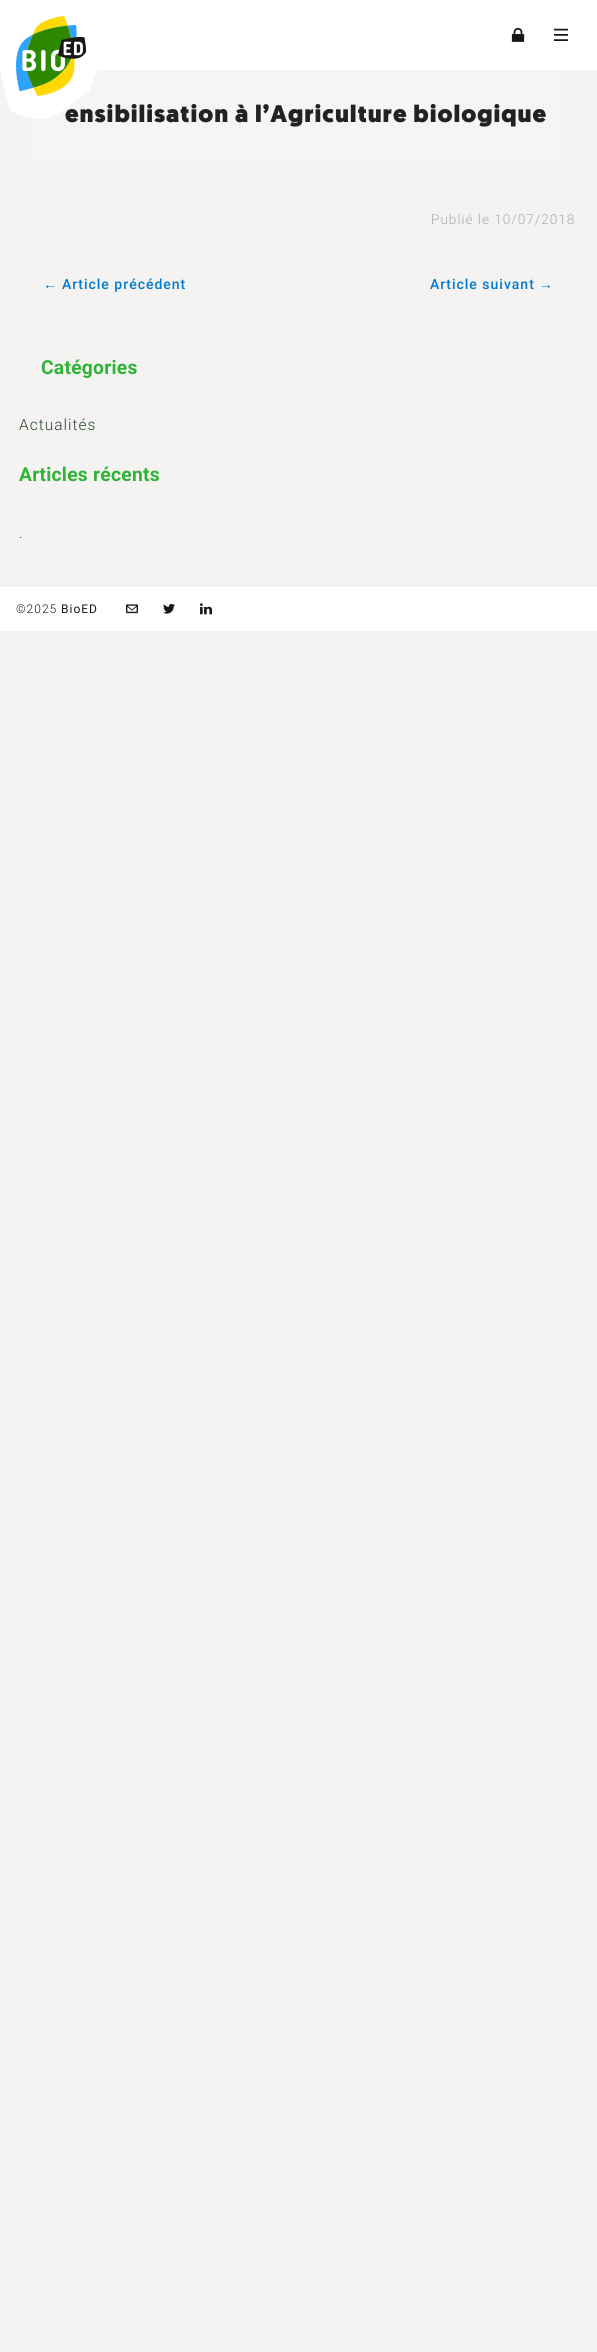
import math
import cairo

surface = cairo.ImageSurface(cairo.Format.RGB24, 597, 2352)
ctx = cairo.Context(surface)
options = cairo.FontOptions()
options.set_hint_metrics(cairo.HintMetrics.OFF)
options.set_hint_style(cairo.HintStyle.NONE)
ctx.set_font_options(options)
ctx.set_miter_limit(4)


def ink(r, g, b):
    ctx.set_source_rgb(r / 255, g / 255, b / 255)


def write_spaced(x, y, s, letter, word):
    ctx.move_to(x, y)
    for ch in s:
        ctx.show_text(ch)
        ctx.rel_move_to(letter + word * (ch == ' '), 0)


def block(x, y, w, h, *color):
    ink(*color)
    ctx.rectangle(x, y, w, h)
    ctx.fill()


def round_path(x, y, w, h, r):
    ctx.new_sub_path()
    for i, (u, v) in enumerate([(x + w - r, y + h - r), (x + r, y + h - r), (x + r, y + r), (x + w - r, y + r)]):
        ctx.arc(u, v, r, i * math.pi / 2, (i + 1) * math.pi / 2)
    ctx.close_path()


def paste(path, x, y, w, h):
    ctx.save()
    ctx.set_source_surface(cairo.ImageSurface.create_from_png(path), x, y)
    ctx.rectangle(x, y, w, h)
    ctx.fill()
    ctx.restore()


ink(244, 243, 242)
ctx.paint()
block(0, 0, 597, 70, 255, 255, 255)
ink(245, 245, 245)
round_path(34, 70, 529, 93, 8)
ctx.fill()
ctx.select_font_face("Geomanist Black")
ctx.set_font_size(24)
ink(34, 34, 34)
write_spaced(65, 122, "ensibilisation à l’Agriculture biologique", 1, 0)
ink(255, 255, 255)
ctx.new_path()
ctx.move_to(6, 96)
ctx.curve_to(10, 112, 11, 113, 27, 117)
ctx.curve_to(34, 119, 42, 120, 50, 118)
ctx.curve_to(57, 116, 81, 97, 89, 92)
ctx.line_to(104, 53)
ctx.curve_to(102, 44, 93, 40, 87, 34)
ctx.line_to(50, 0)
ctx.line_to(42, -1)
ctx.curve_to(40, -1, 17, -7, 14, -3)
ctx.curve_to(10, 1, 8, 14, 6, 20)
ctx.curve_to(3, 30, 0, 41, 0, 52)
ctx.curve_to(-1, 67, 2, 82, 6, 96)
ctx.close_path()
ctx.fill()
paste("pic1.png", 16, 16, 70, 80)
paste("pic2.png", 511, 27, 14, 15)
paste("pic3.png", 554, 28, 14, 13)
ctx.select_font_face("Roboto Light")
ctx.set_font_size(13.6)
ink(170, 170, 170)
write_spaced(431, 224, "Publié le 10/07/2018", 1, 0)
ctx.select_font_face("Liberation Sans")
ctx.set_font_size(14)
ink(0, 122, 204)
write_spaced(43, 289, "←", 1, 0)
ctx.select_font_face("Roboto Medium")
write_spaced(62, 289, "Article précédent", 1, 0)
write_spaced(430, 289, "Article suivant", 1, 0)
ctx.select_font_face("Liberation Sans")
write_spaced(539, 289, "→", 1, 0)
ctx.select_font_face("Roboto", cairo.FontSlant.NORMAL, cairo.FontWeight.BOLD)
ctx.set_font_size(19.25)
ink(46, 180, 53)
write_spaced(41, 374, "Catégories", 0.25, 0)
ctx.select_font_face("Roboto Light")
ctx.set_font_size(15.5)
ink(43, 70, 54)
write_spaced(19, 430, "Actualités", 1, 0)
ctx.select_font_face("Roboto", cairo.FontSlant.NORMAL, cairo.FontWeight.BOLD)
ctx.set_font_size(19.25)
ink(46, 180, 53)
write_spaced(19, 481, "Articles récents", 0.25, 0)
ctx.select_font_face("Roboto Light")
ctx.set_font_size(15.5)
ink(43, 70, 54)
write_spaced(19, 538, ".", 1, 0)
block(0, 587, 597, 44, 255, 255, 255)
ctx.set_font_size(12)
ink(24, 23, 22)
write_spaced(16, 613, "©2025", 1, 0)
ctx.select_font_face("Roboto")
write_spaced(61, 613, "BioED", 1, 0)
paste("pic4.png", 126, 604, 12, 10)
paste("pic5.png", 163, 603, 12, 11)
paste("pic6.png", 200, 603, 12, 12)
surface.write_to_png("screenshot.png")
